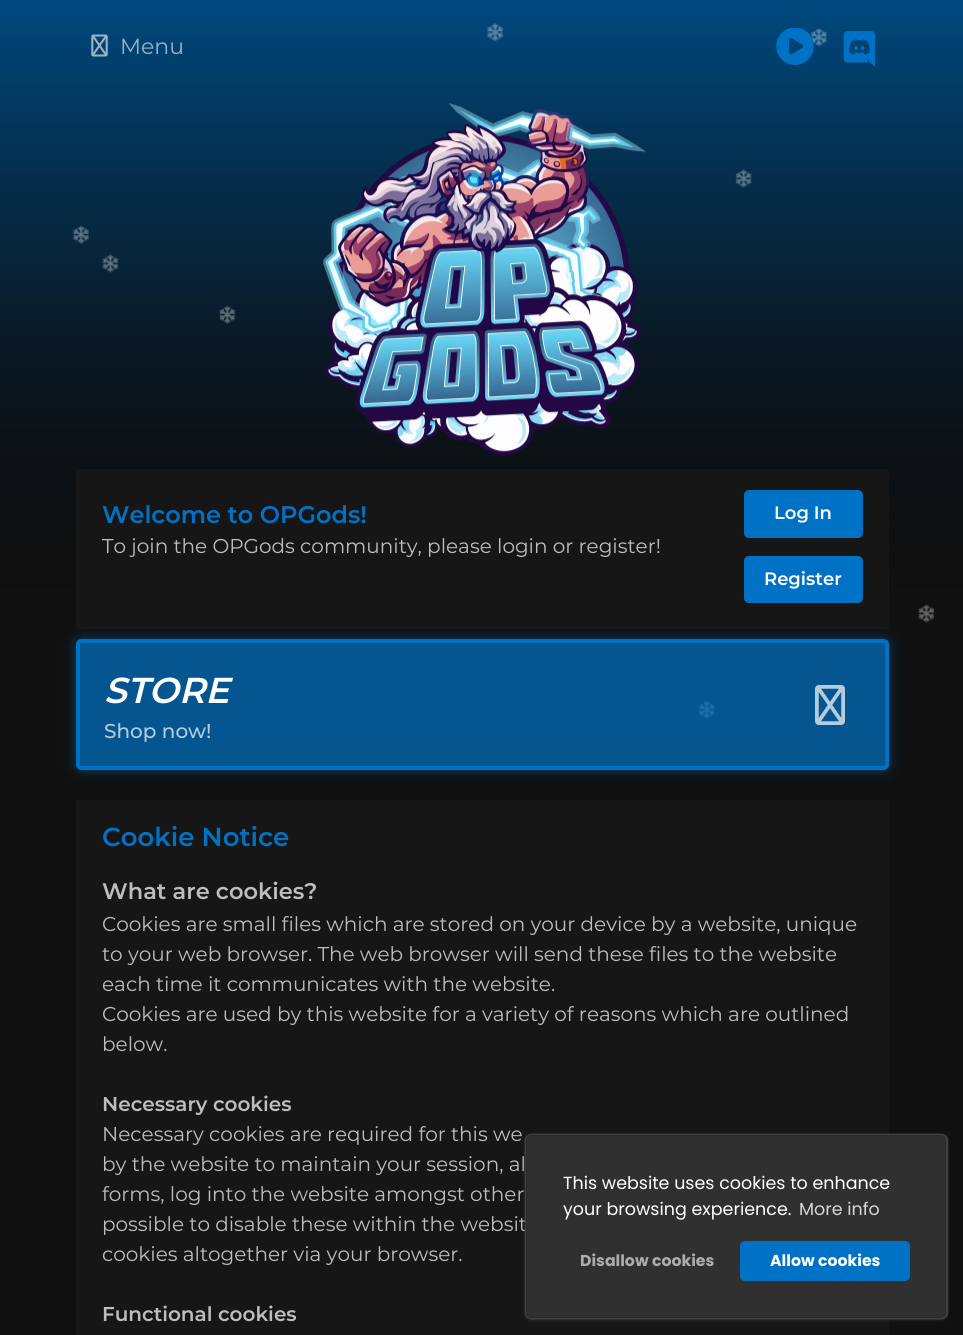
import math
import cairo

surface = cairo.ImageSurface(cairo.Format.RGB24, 963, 1335)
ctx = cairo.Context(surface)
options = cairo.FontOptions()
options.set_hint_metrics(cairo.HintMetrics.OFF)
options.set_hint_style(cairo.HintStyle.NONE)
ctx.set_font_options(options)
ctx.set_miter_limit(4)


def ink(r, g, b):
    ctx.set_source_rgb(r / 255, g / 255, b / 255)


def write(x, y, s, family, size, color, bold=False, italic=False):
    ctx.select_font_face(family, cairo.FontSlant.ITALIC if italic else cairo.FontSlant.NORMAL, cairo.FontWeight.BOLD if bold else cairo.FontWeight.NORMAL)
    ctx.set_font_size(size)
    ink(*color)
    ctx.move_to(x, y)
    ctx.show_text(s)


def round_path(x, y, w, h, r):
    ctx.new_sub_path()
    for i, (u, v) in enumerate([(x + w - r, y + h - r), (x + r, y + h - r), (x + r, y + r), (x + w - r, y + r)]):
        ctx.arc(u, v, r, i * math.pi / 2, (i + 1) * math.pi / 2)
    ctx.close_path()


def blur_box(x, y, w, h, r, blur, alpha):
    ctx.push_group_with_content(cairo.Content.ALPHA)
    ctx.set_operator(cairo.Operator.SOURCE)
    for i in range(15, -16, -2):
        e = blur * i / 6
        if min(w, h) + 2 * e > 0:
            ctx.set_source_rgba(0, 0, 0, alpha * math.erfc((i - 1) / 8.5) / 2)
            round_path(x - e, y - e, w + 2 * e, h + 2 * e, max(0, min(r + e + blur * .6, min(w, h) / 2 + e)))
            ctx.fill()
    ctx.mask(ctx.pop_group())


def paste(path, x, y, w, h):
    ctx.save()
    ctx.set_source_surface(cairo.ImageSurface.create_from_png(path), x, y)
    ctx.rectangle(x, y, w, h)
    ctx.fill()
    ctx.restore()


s1 = dict(family="Montserrat", size=22, color=(153, 179, 198))
s2 = dict(family="Montserrat SemiBold", size=24, color=(0, 114, 198))
s3 = dict(family="Montserrat", size=20, color=(189, 189, 189))
s4 = dict(family="Montserrat SemiBold", size=18, color=(255, 255, 255))
s5 = dict(family="Montserrat SemiBold", size=36, color=(255, 255, 255), italic=True)
s6 = dict(family="Montserrat Medium", size=20, color=(180, 204, 222))
s7 = dict(family="Montserrat SemiBold", size=26, color=(0, 114, 198))
s8 = dict(family="Montserrat SemiBold", size=22.5, color=(189, 189, 189))
s9 = dict(family="Montserrat SemiBold", size=20, color=(189, 189, 189))
s10 = dict(family="Poppins", size=17.5, color=(255, 255, 255))
s11 = dict(family="Poppins", size=17.5, color=(214, 214, 214))
s12 = dict(family="Poppins", size=15.75, color=(172, 172, 172), bold=True)
s13 = dict(family="Poppins", size=15.75, color=(255, 255, 255), bold=True)

ink(16, 16, 16)
ctx.paint()
gradient = cairo.LinearGradient(482, 0, 482, 594)
gradient.add_color_stop_rgba(0, 0, 0.447, 0.776, 1)
gradient.add_color_stop_rgba(1, 0.063, 0.063, 0.063, 1)
ctx.set_source(gradient)
ctx.rectangle(0, 0, 963, 586)
ctx.fill()
gradient = cairo.LinearGradient(482, 0, 482, 600)
gradient.add_color_stop_rgba(0, 0, 0, 0, 0.2)
gradient.add_color_stop_rgba(1, 0.063, 0.063, 0.063, 1)
ctx.set_source(gradient)
ctx.rectangle(0, 0, 963, 589)
ctx.fill()
gradient = cairo.LinearGradient(482, 0, 482, 285)
gradient.add_color_stop_rgba(0, 0, 0, 0, 0.2)
gradient.add_color_stop_rgba(1, 0, 0, 0, 0)
ctx.set_source(gradient)
ctx.rectangle(0, 0, 963, 228)
ctx.fill()
paste("pic1.png", 72, 23, 863, 696)
paste("pic2.png", 91, 34, 17, 23)
write(120, 54, "Menu", **s1)
paste("pic3.png", 776, 28, 38, 37)
paste("pic4.png", 843, 31, 32, 36)
paste("pic5.png", 323, 103, 323, 354)
ink(22, 22, 22)
round_path(76, 469, 813, 160, 3)
ctx.fill()
write(102, 523, "Welcome to OPGods!", **s2)
write(102, 553, "To join the OPGods community, please login or register!", **s3)
ink(0, 114, 198)
round_path(744, 490, 119, 48, 5)
ctx.fill()
write(774, 519, "Log In", **s4)
ink(0, 114, 198)
round_path(744, 556, 119, 47, 5)
ctx.fill()
write(764, 585, "Register", **s4)
ctx.save()
ctx.set_fill_rule(cairo.FillRule.EVEN_ODD)
ctx.new_path()
ctx.move_to(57, 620)
ctx.line_to(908, 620)
ctx.line_to(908, 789)
ctx.line_to(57, 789)
ctx.close_path()
ctx.move_to(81, 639)
ctx.line_to(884, 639)
ctx.curve_to(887, 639, 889, 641, 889, 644)
ctx.line_to(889, 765)
ctx.curve_to(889, 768, 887, 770, 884, 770)
ctx.line_to(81, 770)
ctx.curve_to(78, 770, 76, 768, 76, 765)
ctx.line_to(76, 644)
ctx.curve_to(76, 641, 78, 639, 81, 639)
ctx.close_path()
ctx.clip()
ink(0, 114, 198)
blur_box(76, 639, 813, 131, 5, 6, 0.5)
ctx.restore()
ctx.set_source_rgba(0, 0.447, 0.776, 0.7)
round_path(78, 641, 809, 127, 3)
ctx.fill_preserve()
ink(0, 114, 198)
ctx.set_line_width(4)
ctx.stroke()
write(104, 703, "STORE", **s5)
paste("pic6.png", 815, 685, 30, 40)
write(104, 738, "Shop now!", **s6)
ink(22, 22, 22)
round_path(76, 800, 813, 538, 3)
ctx.fill()
write(102, 846, "Cookie Notice", **s7)
write(102, 899, "What are cookies?", **s8)
write(102, 931, "Cookies are small files which are stored on your device by a website, unique", **s3)
write(102, 961, "to your web browser. The web browser will send these files to the website", **s3)
write(102, 991, "each time it communicates with the website.", **s3)
write(102, 1021, "Cookies are used by this website for a variety of reasons which are outlined", **s3)
write(102, 1051, "below.", **s3)
write(102, 1111, "Necessary cookies", **s9)
write(102, 1141, "Necessary cookies are required for this we", **s3)
write(102, 1171, "by the website to maintain your session, al", **s3)
write(102, 1201, "forms, log into the website amongst other", **s3)
write(102, 1231, "possible to disable these within the websit", **s3)
write(102, 1261, "cookies altogether via your browser.", **s3)
write(102, 1321, "Functional cookies", **s9)
ink(68, 68, 68)
blur_box(525, 1134, 423, 185, 6, 0.5, 1)
blur_box(526, 1136, 420, 183, 5, 2, 1)
ink(48, 48, 48)
round_path(526, 1135, 420, 183, 5)
ctx.fill()
round_path(526.5, 1135.5, 419, 182, 4.5)
ctx.set_source_rgba(0, 0, 0, 0.12)
ctx.set_line_width(1)
ctx.stroke()
write(563, 1189, "This website uses cookies to enhance", **s10)
write(563, 1215, "your browsing experience.", **s10)
write(799, 1215, "More info", **s11)
write(580, 1266, "Disallow cookies", **s12)
ink(0, 114, 198)
round_path(740, 1241, 170, 40, 5)
ctx.fill()
write(770, 1266, "Allow cookies", **s13)
surface.write_to_png("screenshot.png")
